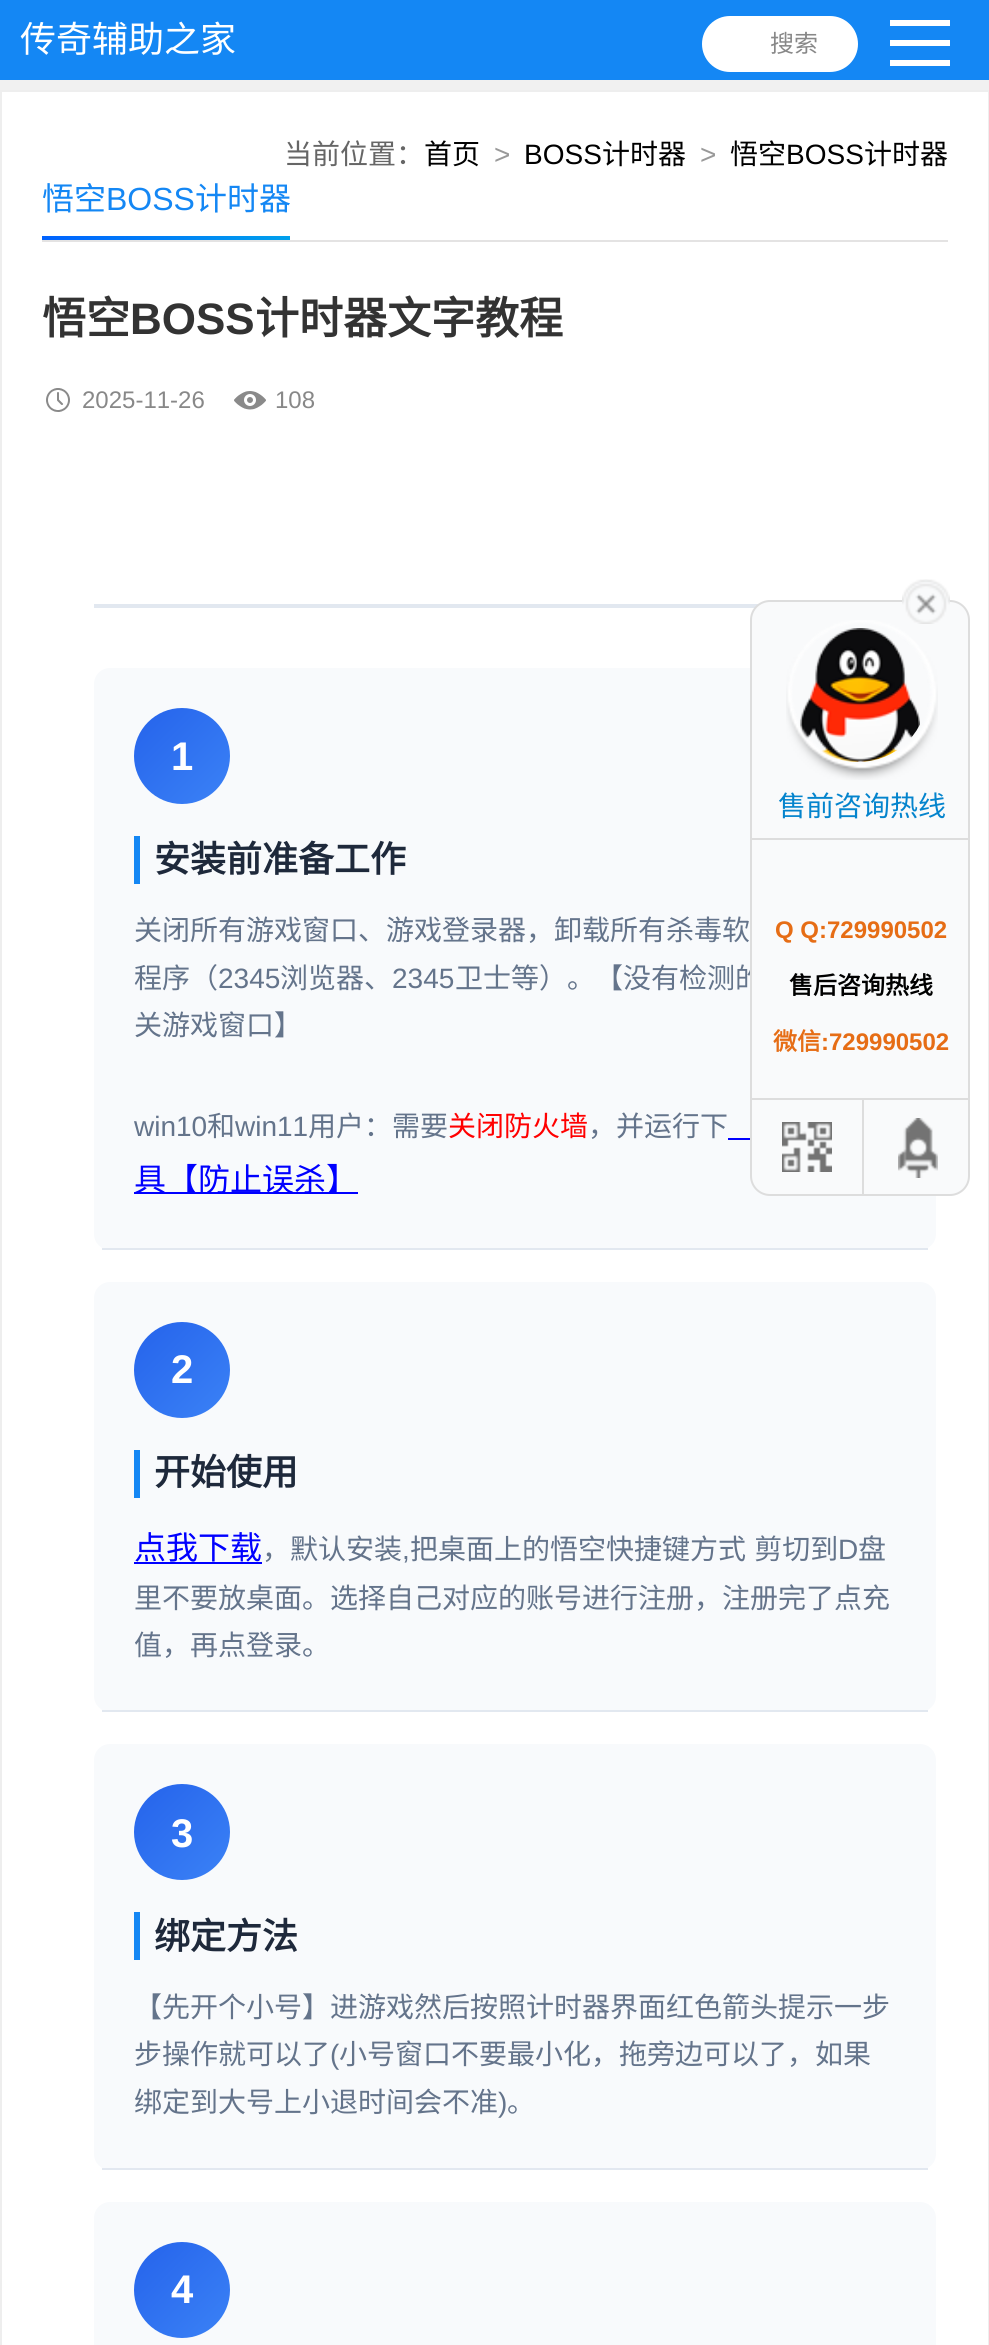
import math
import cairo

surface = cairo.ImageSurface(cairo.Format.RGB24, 989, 2345)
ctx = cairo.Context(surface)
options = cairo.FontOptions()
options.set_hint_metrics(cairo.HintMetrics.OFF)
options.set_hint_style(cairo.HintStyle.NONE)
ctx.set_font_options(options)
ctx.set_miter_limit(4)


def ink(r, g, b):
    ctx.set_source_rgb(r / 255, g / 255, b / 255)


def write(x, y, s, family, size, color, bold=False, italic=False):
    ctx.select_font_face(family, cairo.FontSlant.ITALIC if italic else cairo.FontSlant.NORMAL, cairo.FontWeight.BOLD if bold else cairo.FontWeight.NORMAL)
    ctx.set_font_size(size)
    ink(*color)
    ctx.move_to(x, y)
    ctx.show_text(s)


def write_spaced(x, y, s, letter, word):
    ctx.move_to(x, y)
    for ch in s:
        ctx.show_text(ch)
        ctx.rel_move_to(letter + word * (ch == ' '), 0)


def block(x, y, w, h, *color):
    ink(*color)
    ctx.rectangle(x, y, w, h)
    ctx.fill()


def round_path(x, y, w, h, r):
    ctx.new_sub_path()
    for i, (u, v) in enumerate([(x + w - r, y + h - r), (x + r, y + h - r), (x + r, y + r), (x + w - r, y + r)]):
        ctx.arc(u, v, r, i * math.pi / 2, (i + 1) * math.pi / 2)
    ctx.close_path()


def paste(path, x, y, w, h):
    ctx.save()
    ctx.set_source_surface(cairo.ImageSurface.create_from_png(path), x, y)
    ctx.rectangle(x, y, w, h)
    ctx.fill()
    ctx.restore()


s1 = dict(family="Noto Sans CJK SC", size=36, color=(255, 255, 255))
s2 = dict(family="Noto Sans CJK SC", size=24, color=(136, 136, 136))
s3 = dict(family="Noto Sans CJK SC", size=28, color=(102, 102, 102))
s4 = dict(family="Noto Sans CJK SC", size=28, color=(0, 0, 0))
s5 = dict(family="Liberation Sans", size=28, color=(153, 153, 153))
s6 = dict(family="Liberation Sans", size=28, color=(0, 0, 0))
s7 = dict(family="Noto Sans CJK SC", size=32, color=(20, 135, 244))
s8 = dict(family="Liberation Sans", size=32, color=(20, 135, 244))
s9 = dict(family="Noto Sans CJK SC", size=44, color=(51, 51, 51), bold=True)
s10 = dict(family="Liberation Sans", size=44, color=(51, 51, 51), bold=True)
s11 = dict(family="Liberation Sans", size=24, color=(136, 136, 136))
s12 = dict(family="Liberation Sans", size=40, color=(255, 255, 255), bold=True)
s13 = dict(family="Noto Sans CJK SC", size=36, color=(30, 41, 59), bold=True)
s14 = dict(family="Noto Sans CJK SC", size=28, color=(100, 116, 139))
s15 = dict(family="Liberation Sans", size=28, color=(100, 116, 139))
s16 = dict(family="Noto Sans CJK SC", size=28, color=(255, 0, 0))
s17 = dict(family="Noto Sans CJK SC", size=32, color=(0, 0, 255))
s18 = dict(family="Noto Sans CJK SC", size=28, color=(4, 132, 205))
s19 = dict(family="Liberation Sans", size=24, color=(230, 109, 21), bold=True)
s20 = dict(family="Noto Sans CJK SC", size=24, color=(0, 0, 0), bold=True)
s21 = dict(family="Noto Sans CJK SC", size=24, color=(230, 109, 21), bold=True)

ink(241, 241, 241)
ctx.paint()
block(0, 0, 989, 80, 20, 135, 244)
write(20, 52, "传奇辅助之家", **s1)
block(890, 40, 60, 6, 255, 255, 255)
block(890, 20, 60, 6, 255, 254, 254)
block(890, 60, 60, 6, 255, 254, 254)
ink(255, 255, 255)
round_path(702, 16, 156, 56, 28)
ctx.fill()
write(770, 52, "搜索", **s2)
ink(255, 255, 255)
ctx.rectangle(1, 91, 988, 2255)
ctx.fill_preserve()
ink(238, 238, 238)
ctx.stroke()
block(42, 240, 906, 2, 228, 227, 227)
write(284, 164, "当前位置：", **s3)
write(424, 164, "首页", **s4)
write(494, 164, ">", **s5)
write(524, 164, "BOSS", **s6)
write(602, 164, "计时器", **s4)
write(700, 164, ">", **s5)
write(730, 164, "悟空", **s4)
write(786, 164, "BOSS", **s6)
write(864, 164, "计时器", **s4)
write(42, 210, "悟空", **s7)
write(106, 210, "BOSS", **s8)
write(195, 210, "计时器", **s7)
gradient = cairo.LinearGradient(42, 238, 290, 238)
gradient.add_color_stop_rgba(0, 0, 0.384, 1, 1)
gradient.add_color_stop_rgba(1, 0, 0.627, 0.925, 1)
ctx.set_source(gradient)
ctx.rectangle(42, 236, 248, 4)
ctx.fill()
write(42, 334, "悟空", **s9)
write(130, 334, "BOSS", **s10)
write(255, 334, "计时器文字教程", **s9)
paste("pic1.png", 46, 388, 24, 24)
write(82, 408, "2025-11-26", **s11)
paste("pic2.png", 234, 391, 32, 19)
write(275, 408, "108", **s11)
block(94, 604, 664, 4, 226, 232, 240)
ink(248, 250, 252)
round_path(94, 668, 842, 582, 16)
ctx.fill()
block(102, 1248, 826, 2, 226, 232, 240)
gradient = cairo.LinearGradient(134, 708, 230, 804)
gradient.add_color_stop_rgba(0, 0.145, 0.388, 0.922, 1)
gradient.add_color_stop_rgba(1, 0.231, 0.51, 0.965, 1)
ctx.set_source(gradient)
ctx.arc(182, 756, 48, 0, 2 * math.pi)
ctx.fill()
write(171, 770, "1", **s12)
block(134, 836, 6, 48, 20, 135, 244)
write(154, 872, "安装前准备工作", **s13)
write(134, 940, "关闭所有游戏窗口、游戏登录器，卸载所有杀毒软", **s14)
write(134, 988, "程序（", **s14)
write(218, 988, "2345", **s15)
write(280, 988, "浏览器、", **s14)
write(392, 988, "2345", **s15)
write(455, 988, "卫士等）。【没有检测的", **s14)
write(134, 1035, "关游戏窗口】", **s14)
write(134, 1136, "win10", **s15)
write(207, 1136, "和", **s14)
write(235, 1136, "win11", **s15)
write(308, 1136, "用户：需要", **s14)
write(448, 1136, "关闭防火墙", **s16)
write(588, 1136, "，并运行下", **s14)
block(728, 1138, 22, 2, 0, 0, 255)
block(134, 1192, 224, 2, 0, 0, 255)
write(134, 1191, "具【防止误杀】", **s17)
ink(248, 250, 252)
round_path(94, 1282, 842, 430, 16)
ctx.fill()
block(102, 1710, 826, 2, 226, 232, 240)
gradient = cairo.LinearGradient(134, 1322, 230, 1418)
gradient.add_color_stop_rgba(0, 0.145, 0.388, 0.922, 1)
gradient.add_color_stop_rgba(1, 0.231, 0.51, 0.965, 1)
ctx.set_source(gradient)
ctx.arc(182, 1370, 48, 0, 2 * math.pi)
ctx.fill()
write(171, 1383, "2", **s12)
block(134, 1450, 6, 48, 20, 135, 244)
write(154, 1485, "开始使用", **s13)
write(134, 1559, "点我下载", **s17)
block(134, 1562, 128, 2, 0, 0, 255)
write(262, 1559, "，默认安装", **s14)
write(402, 1559, ",", **s15)
ctx.select_font_face("Noto Sans CJK SC")
write_spaced(410, 1559, "把桌面上的悟空快捷键方式 剪切到", 0, 2)
write(838, 1559, "D", **s15)
write(858, 1559, "盘", **s14)
write(134, 1608, "里不要放桌面。选择自己对应的账号进行注册，注册完了点充", **s14)
write(134, 1655, "值，再点登录。", **s14)
ink(248, 250, 252)
round_path(94, 1744, 842, 426, 16)
ctx.fill()
block(102, 2168, 826, 2, 226, 232, 240)
gradient = cairo.LinearGradient(134, 1784, 230, 1880)
gradient.add_color_stop_rgba(0, 0.145, 0.388, 0.922, 1)
gradient.add_color_stop_rgba(1, 0.231, 0.51, 0.965, 1)
ctx.set_source(gradient)
ctx.arc(182, 1832, 48, 0, 2 * math.pi)
ctx.fill()
write(171, 1847, "3", **s12)
block(134, 1912, 6, 48, 20, 135, 244)
write(154, 1949, "绑定方法", **s13)
write(134, 2017, "【先开个小号】进游戏然后按照计时器界面红色箭头提示一步", **s14)
write(134, 2064, "步操作就可以了", **s14)
write(330, 2064, "(", **s15)
write(339, 2064, "小号窗口不要最小化，拖旁边可以了，如果", **s14)
write(134, 2112, "绑定到大号上小退时间会不准", **s14)
write(498, 2112, ")", **s15)
write(507, 2112, "。", **s14)
ink(248, 250, 252)
round_path(94, 2202, 842, 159, 16)
ctx.fill()
gradient = cairo.LinearGradient(134, 2242, 230, 2338)
gradient.add_color_stop_rgba(0, 0.145, 0.388, 0.922, 1)
gradient.add_color_stop_rgba(1, 0.231, 0.51, 0.965, 1)
ctx.set_source(gradient)
ctx.arc(182, 2290, 48, 0, 2 * math.pi)
ctx.fill()
write(171, 2303, "4", **s12)
ink(249, 250, 251)
round_path(751, 601, 218, 594, 19)
ctx.fill_preserve()
ink(221, 221, 221)
ctx.stroke()
paste("pic5.png", 800, 628, 120, 134)
paste("pic4.png", 786, 620, 152, 160)
paste("pic3.png", 902, 579, 48, 45)
block(752, 838, 218, 2, 221, 221, 221)
write(778, 816, "售前咨询热线", **s18)
block(752, 1098, 218, 2, 221, 221, 221)
write(775, 938, "Q Q:729990502", **s19)
write(789, 994, "售后咨询热线", **s20)
write(773, 1050, "微信", **s21)
write(821, 1050, ":729990502", **s19)
paste("pic6.png", 782, 1122, 50, 50)
block(862, 1100, 2, 94, 221, 221, 221)
paste("pic7.png", 898, 1118, 40, 60)
surface.write_to_png("screenshot.png")
